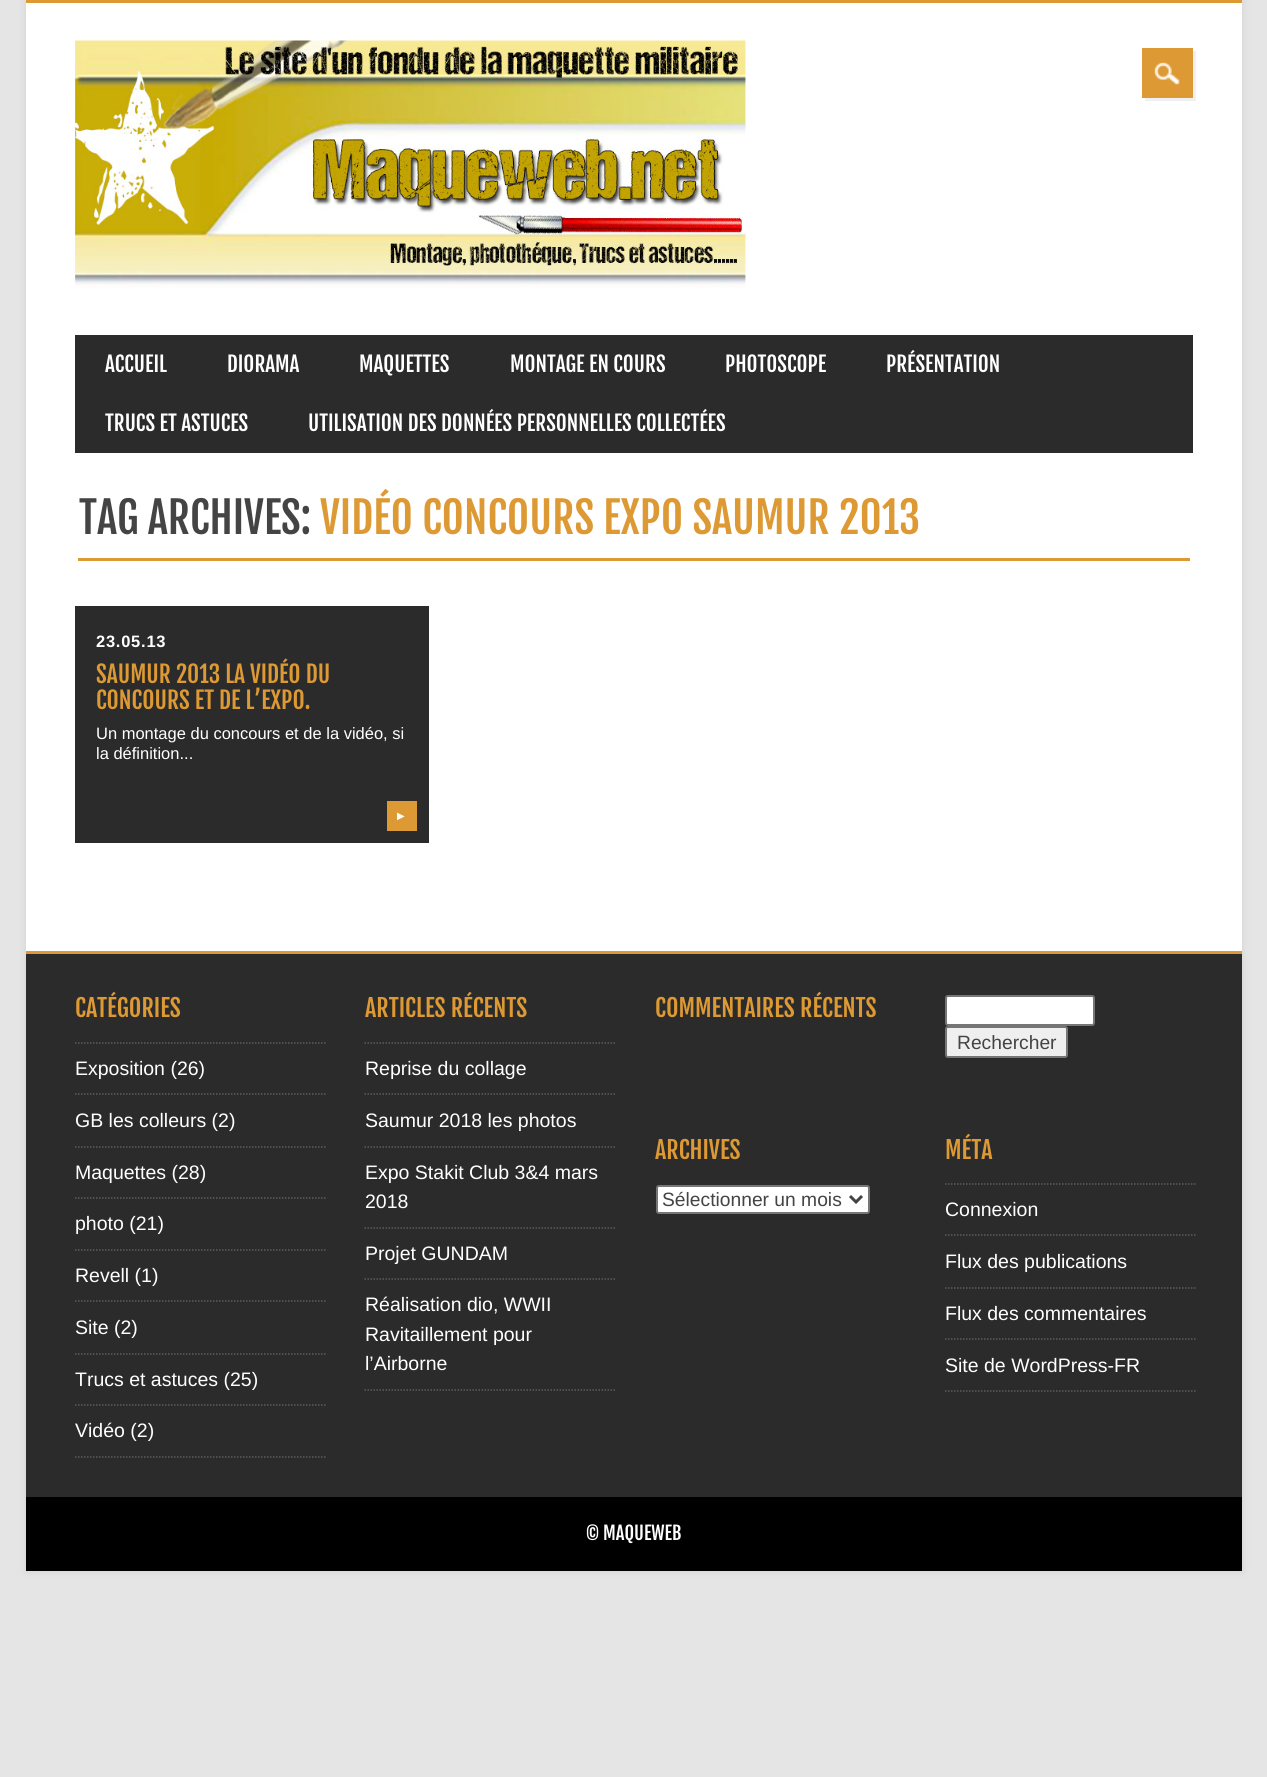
import math
import cairo

surface = cairo.ImageSurface(cairo.Format.RGB24, 1267, 1777)
ctx = cairo.Context(surface)
options = cairo.FontOptions()
options.set_hint_metrics(cairo.HintMetrics.OFF)
options.set_hint_style(cairo.HintStyle.NONE)
ctx.set_font_options(options)
ctx.set_miter_limit(4)


def ink(r, g, b):
    ctx.set_source_rgb(r / 255, g / 255, b / 255)


def write(x, y, s, family, size, color, bold=False, italic=False):
    ctx.select_font_face(family, cairo.FontSlant.ITALIC if italic else cairo.FontSlant.NORMAL, cairo.FontWeight.BOLD if bold else cairo.FontWeight.NORMAL)
    ctx.set_font_size(size)
    ink(*color)
    ctx.move_to(x, y)
    ctx.show_text(s)


def write_spaced(x, y, s, letter, word):
    ctx.move_to(x, y)
    for ch in s:
        ctx.show_text(ch)
        ctx.rel_move_to(letter + word * (ch == ' '), 0)


def block(x, y, w, h, *color):
    ink(*color)
    ctx.rectangle(x, y, w, h)
    ctx.fill()


def round_path(x, y, w, h, r):
    ctx.new_sub_path()
    for i, (u, v) in enumerate([(x + w - r, y + h - r), (x + r, y + h - r), (x + r, y + r), (x + w - r, y + r)]):
        ctx.arc(u, v, r, i * math.pi / 2, (i + 1) * math.pi / 2)
    ctx.close_path()


def blur_box(x, y, w, h, r, blur, alpha):
    ctx.push_group_with_content(cairo.Content.ALPHA)
    ctx.set_operator(cairo.Operator.SOURCE)
    for i in range(15, -16, -2):
        e = blur * i / 6
        if min(w, h) + 2 * e > 0:
            ctx.set_source_rgba(0, 0, 0, alpha * math.erfc((i - 1) / 8.5) / 2)
            round_path(x - e, y - e, w + 2 * e, h + 2 * e, max(0, min(r + e + blur * .6, min(w, h) / 2 + e)))
            ctx.fill()
    ctx.mask(ctx.pop_group())


def paste(path, x, y, w, h):
    ctx.save()
    ctx.set_source_surface(cairo.ImageSurface.create_from_png(path), x, y)
    ctx.rectangle(x, y, w, h)
    ctx.fill()
    ctx.restore()


s1 = dict(family="Fjalla One", size=21, color=(255, 255, 255))
s2 = dict(family="Fjalla One", size=42.9, color=(68, 68, 68))
s3 = dict(family="Fjalla One", size=42.9, color=(221, 153, 51))
s4 = dict(family="Fjalla One", size=23.4, color=(221, 153, 51))
s5 = dict(family="Liberation Sans", size=16.5, color=(255, 255, 255))
s6 = dict(family="DejaVu Sans", size=10, color=(255, 255, 255))
s7 = dict(family="Fjalla One", size=24, color=(221, 153, 51))
s8 = dict(family="Liberation Sans", size=19.5, color=(255, 255, 255))
s9 = dict(family="Liberation Sans", size=19.25, color=(68, 68, 68))
s10 = dict(family="Fjalla One", size=18.5, color=(255, 255, 255))

ink(229, 229, 229)
ctx.paint()
ink(208, 208, 208)
blur_box(26, 0, 1216, 1571, 0, 4, 1)
block(26, 3, 1216, 948, 255, 255, 255)
block(26, 0, 1216, 3, 221, 153, 51)
paste("pic1.png", 75, 40, 671, 248)
ink(240, 240, 240)
ctx.new_path()
ctx.move_to(1145, 98)
ctx.line_to(1145, 101)
ctx.line_to(1196, 101)
ctx.line_to(1196, 51)
ctx.line_to(1192, 51)
ctx.line_to(1192, 98)
ctx.close_path()
ctx.fill()
block(1142, 48, 51, 50, 221, 153, 51)
paste("pic2.png", 1154, 62, 26, 23)
block(75, 335, 1118, 118, 43, 43, 43)
write(105, 372, "ACCUEIL", **s1)
write(227, 372, "DIORAMA", **s1)
write(359, 372, "MAQUETTES", **s1)
write(510, 372, "MONTAGE EN COURS", **s1)
write(725, 372, "PHOTOSCOPE", **s1)
write(886, 372, "PRÉSENTATION", **s1)
write(105, 431, "TRUCS ET ASTUCES", **s1)
write(308, 431, "UTILISATION DES DONNÉES PERSONNELLES COLLECTÉES", **s1)
write(79, 534, "TAG ARCHIVES:", **s2)
write(320, 534, "VIDÉO CONCOURS EXPO SAUMUR 2013", **s3)
block(78, 558, 1112, 3, 221, 153, 51)
block(75, 606, 354, 237, 43, 43, 43)
ctx.select_font_face("Liberation Sans", cairo.FontSlant.NORMAL, cairo.FontWeight.BOLD)
ctx.set_font_size(16.5)
ink(255, 255, 255)
write_spaced(96, 647, "23.05.13", 0.75, 0)
write(96, 683, "SAUMUR 2013 LA VIDÉO DU", **s4)
write(96, 709, "CONCOURS ET DE L’EXPO.", **s4)
write(96, 739, "Un montage du concours et de la vidéo, si", **s5)
write(96, 759, "la définition...", **s5)
block(387, 801, 30, 30, 221, 153, 51)
write(397, 819, "▶", **s6)
block(26, 954, 1216, 543, 43, 43, 43)
block(26, 951, 1216, 3, 221, 153, 51)
write(75, 1017, "CATÉGORIES", **s7)
ctx.new_path()
ctx.move_to(75, 1043)
ctx.line_to(325.5, 1043)
ink(91, 91, 91)
ctx.set_line_width(1.5)
ctx.set_dash([1.5, 1.5])
ctx.stroke()
write(75, 1075, "Exposition (26)", **s8)
ctx.new_path()
ctx.move_to(75, 1094)
ctx.line_to(325.5, 1094)
ink(91, 91, 91)
ctx.stroke()
write(75, 1127, "GB les colleurs (2)", **s8)
ctx.new_path()
ctx.move_to(75, 1147)
ctx.line_to(325.5, 1147)
ink(91, 91, 91)
ctx.stroke()
write(75, 1179, "Maquettes (28)", **s8)
ctx.new_path()
ctx.move_to(75, 1198)
ctx.line_to(325.5, 1198)
ink(91, 91, 91)
ctx.stroke()
write(75, 1230, "photo (21)", **s8)
ctx.new_path()
ctx.move_to(75, 1250)
ctx.line_to(325.5, 1250)
ink(91, 91, 91)
ctx.stroke()
write(75, 1282, "Revell (1)", **s8)
ctx.new_path()
ctx.move_to(75, 1301)
ctx.line_to(325.5, 1301)
ink(91, 91, 91)
ctx.stroke()
write(75, 1334, "Site (2)", **s8)
ctx.new_path()
ctx.move_to(75, 1354)
ctx.line_to(325.5, 1354)
ink(91, 91, 91)
ctx.stroke()
write(75, 1386, "Trucs et astuces (25)", **s8)
ctx.new_path()
ctx.move_to(75, 1405)
ctx.line_to(325.5, 1405)
ink(91, 91, 91)
ctx.stroke()
ctx.new_path()
ctx.move_to(75, 1457)
ctx.line_to(325.5, 1457)
ctx.stroke()
write(75, 1437, "Vidéo (2)", **s8)
write(365, 1017, "ARTICLES RÉCENTS", **s7)
ctx.new_path()
ctx.move_to(364.5, 1043)
ctx.line_to(616.5, 1043)
ink(91, 91, 91)
ctx.stroke()
write(365, 1075, "Reprise du collage", **s8)
ctx.new_path()
ctx.move_to(364.5, 1094)
ctx.line_to(616.5, 1094)
ink(91, 91, 91)
ctx.stroke()
write(365, 1127, "Saumur 2018 les photos", **s8)
ctx.new_path()
ctx.move_to(364.5, 1147)
ctx.line_to(616.5, 1147)
ink(91, 91, 91)
ctx.stroke()
write(365, 1179, "Expo Stakit Club 3&4 mars", **s8)
write(365, 1208, "2018", **s8)
ctx.new_path()
ctx.move_to(364.5, 1228)
ctx.line_to(616.5, 1228)
ink(91, 91, 91)
ctx.stroke()
write(365, 1260, "Projet GUNDAM", **s8)
ctx.new_path()
ctx.move_to(364.5, 1279)
ctx.line_to(616.5, 1279)
ink(91, 91, 91)
ctx.stroke()
ctx.new_path()
ctx.move_to(364.5, 1390)
ctx.line_to(616.5, 1390)
ctx.stroke()
write(365, 1311, "Réalisation dio, WWII", **s8)
write(365, 1341, "Ravitaillement pour", **s8)
write(365, 1370, "l’Airborne", **s8)
write(655, 1017, "COMMENTAIRES RÉCENTS", **s7)
ink(255, 255, 255)
round_path(946, 996, 148, 29, 2)
ctx.fill_preserve()
ink(118, 118, 118)
ctx.set_line_width(2)
ctx.set_dash([])
ctx.stroke()
ink(239, 239, 239)
round_path(946, 1027, 121, 30, 2)
ctx.fill_preserve()
ink(118, 118, 118)
ctx.stroke()
write(957, 1049, "Rechercher", **s9)
write(655, 1159, "ARCHIVES", **s7)
ink(255, 255, 255)
round_path(657, 1186, 212, 27, 2)
ctx.fill_preserve()
ink(118, 118, 118)
ctx.stroke()
ctx.new_path()
ctx.move_to(850, 1196)
ctx.line_to(856, 1202)
ctx.line_to(862, 1196)
ink(68, 68, 68)
ctx.set_line_width(3)
ctx.stroke()
write(662, 1206, "Sélectionner un mois", **s9)
write(945, 1159, "MÉTA", **s7)
ctx.new_path()
ctx.move_to(945, 1184)
ctx.line_to(1195.5, 1184)
ink(91, 91, 91)
ctx.set_line_width(1.5)
ctx.set_dash([1.5, 1.5])
ctx.stroke()
write(945, 1216, "Connexion", **s8)
ctx.new_path()
ctx.move_to(945, 1235)
ctx.line_to(1195.5, 1235)
ink(91, 91, 91)
ctx.stroke()
write(945, 1268, "Flux des publications", **s8)
ctx.new_path()
ctx.move_to(945, 1288)
ctx.line_to(1195.5, 1288)
ink(91, 91, 91)
ctx.stroke()
write(945, 1320, "Flux des commentaires", **s8)
ctx.new_path()
ctx.move_to(945, 1339)
ctx.line_to(1195.5, 1339)
ink(91, 91, 91)
ctx.stroke()
ctx.new_path()
ctx.move_to(945, 1391)
ctx.line_to(1195.5, 1391)
ctx.stroke()
write(945, 1372, "Site de WordPress-FR", **s8)
block(26, 1497, 1216, 74, 0, 0, 0)
write(586, 1540, "© MAQUEWEB", **s10)
surface.write_to_png("screenshot.png")
